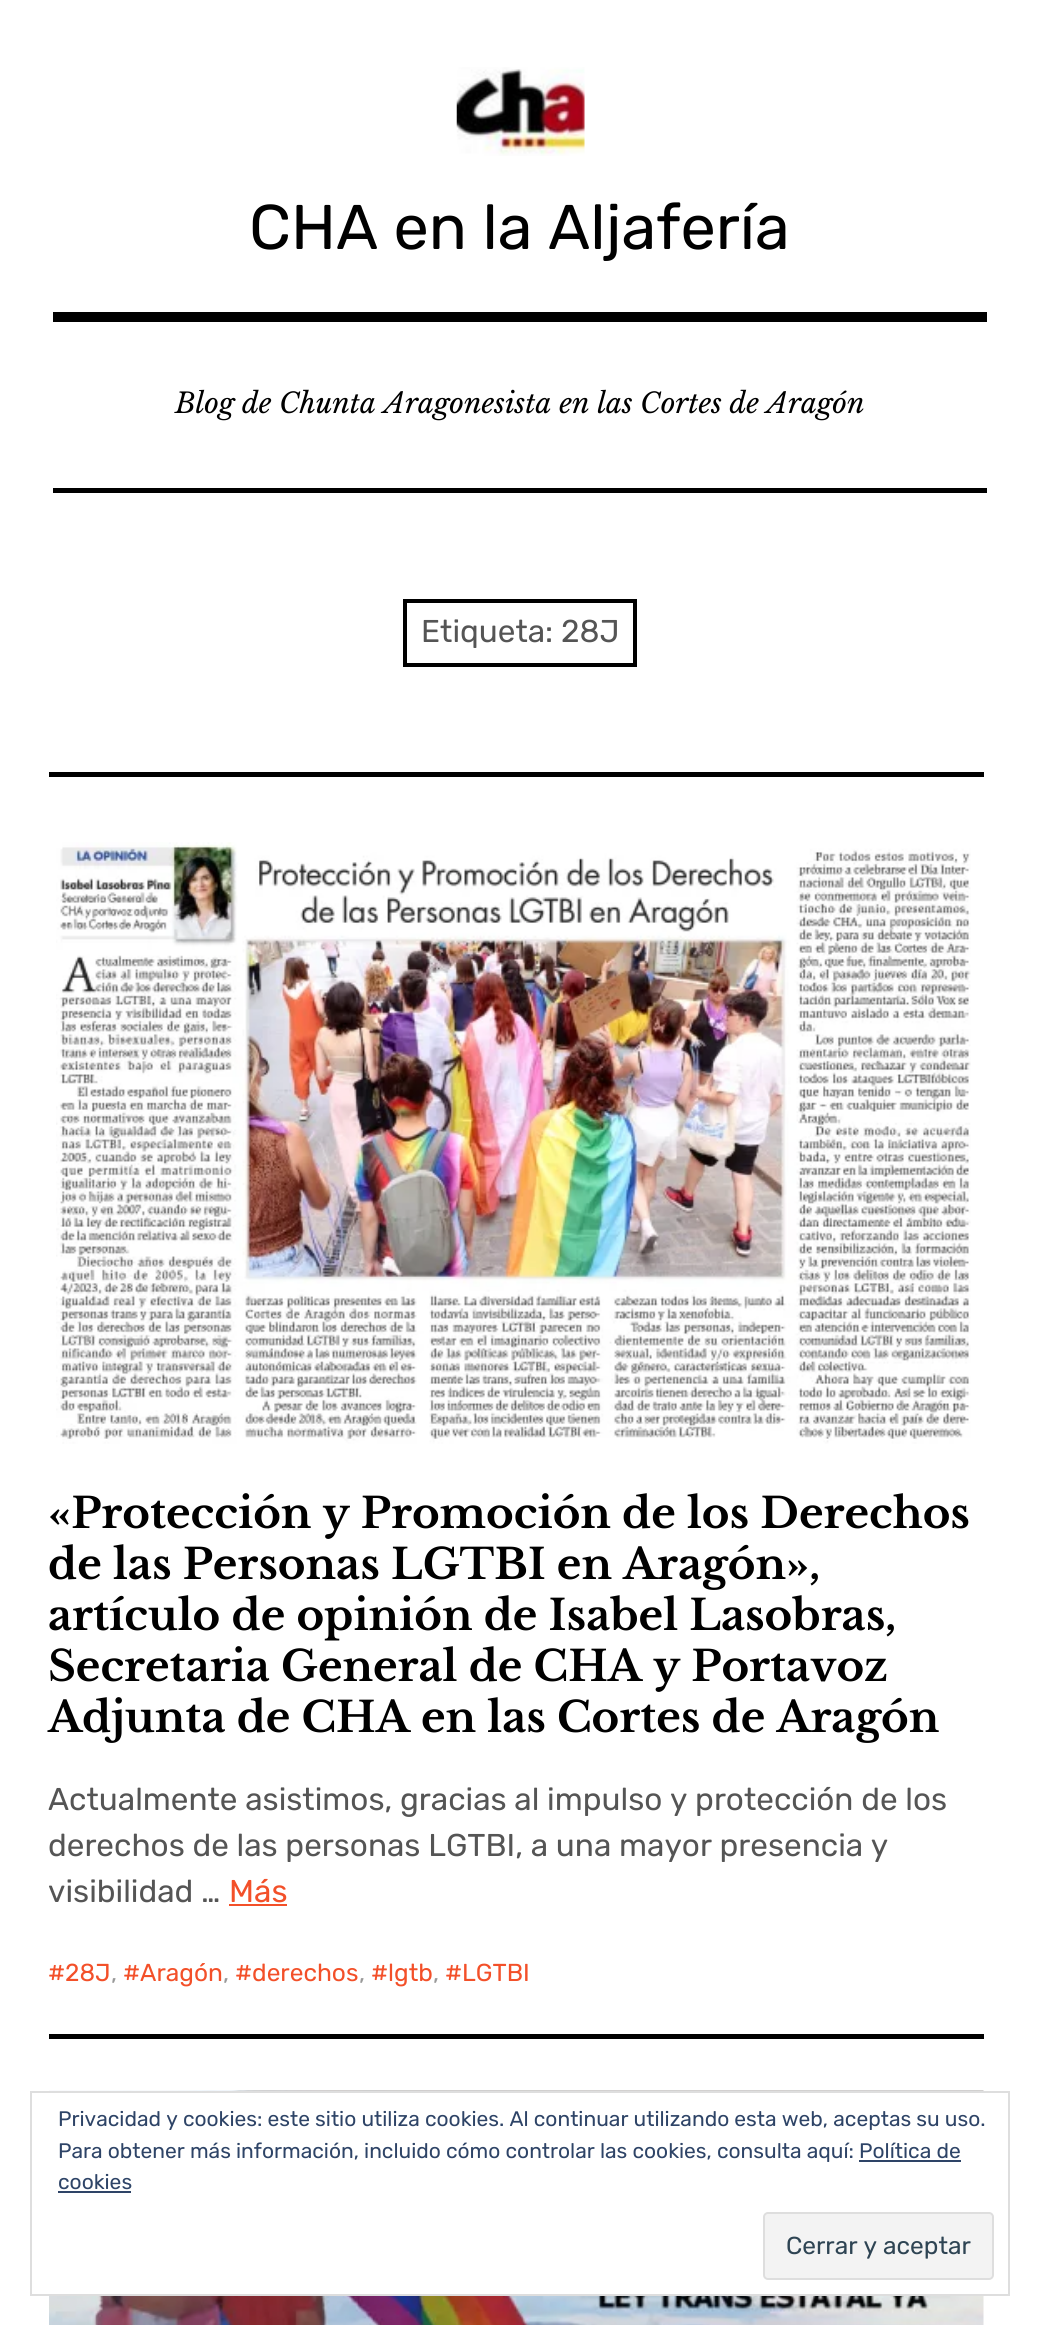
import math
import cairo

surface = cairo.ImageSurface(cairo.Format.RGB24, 1039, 2325)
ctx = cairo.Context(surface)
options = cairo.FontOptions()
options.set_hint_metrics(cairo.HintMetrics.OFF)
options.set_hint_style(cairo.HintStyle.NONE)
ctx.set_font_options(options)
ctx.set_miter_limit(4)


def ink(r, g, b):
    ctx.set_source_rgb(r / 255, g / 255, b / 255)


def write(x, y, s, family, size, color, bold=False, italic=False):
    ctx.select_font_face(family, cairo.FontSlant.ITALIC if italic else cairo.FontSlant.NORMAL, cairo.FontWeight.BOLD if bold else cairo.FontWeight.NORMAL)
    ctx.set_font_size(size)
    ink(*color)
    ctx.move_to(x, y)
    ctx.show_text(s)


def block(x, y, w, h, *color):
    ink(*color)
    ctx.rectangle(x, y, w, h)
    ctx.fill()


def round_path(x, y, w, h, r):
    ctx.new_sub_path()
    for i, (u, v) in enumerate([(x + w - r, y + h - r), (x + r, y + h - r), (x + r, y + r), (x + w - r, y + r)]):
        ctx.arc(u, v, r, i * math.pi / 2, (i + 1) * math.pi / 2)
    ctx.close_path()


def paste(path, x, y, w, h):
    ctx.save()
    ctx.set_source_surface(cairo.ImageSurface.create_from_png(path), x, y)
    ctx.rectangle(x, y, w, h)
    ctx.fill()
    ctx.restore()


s1 = dict(family="Rubik", size=63, color=(0, 0, 0))
s2 = dict(family="Libre Baskerville", size=28, color=(0, 0, 0), italic=True)
s3 = dict(family="Rubik", size=31.5, color=(85, 85, 85))
s4 = dict(family="Libre Baskerville", size=42, color=(0, 0, 0), bold=True)
s5 = dict(family="Rubik", size=31.5, color=(243, 80, 41))
s6 = dict(family="Rubik", size=24.5, color=(243, 80, 41))
s7 = dict(family="Rubik", size=24.5, color=(153, 153, 153))
s8 = dict(family="Rubik", size=21, color=(46, 68, 103))
s9 = dict(family="Rubik", size=24.5, color=(46, 68, 83))

ink(255, 255, 255)
ctx.paint()
block(53, 312, 934, 10, 0, 0, 0)
paste("pic1.png", 456, 67, 129, 89)
write(249, 249, "CHA en la Aljafería", **s1)
write(175, 413, "Blog de Chunta Aragonesista en las Cortes de Aragón", **s2)
block(53, 488, 934, 5, 0, 0, 0)
ctx.rectangle(405, 601, 230, 64)
ctx.set_line_width(4)
ctx.stroke()
write(421, 642, "Etiqueta: 28J", **s3)
block(49, 772, 935, 5, 0, 0, 0)
paste("pic2.png", 56, 842, 915, 602)
write(48, 1528, "«Protección y Promoción de los Derechos", **s4)
write(48, 1579, "de las Personas LGTBI en Aragón»,", **s4)
write(48, 1630, "artículo de opinión de Isabel Lasobras,", **s4)
write(48, 1681, "Secretaria General de CHA y Portavoz", **s4)
write(48, 1732, "Adjunta de CHA en las Cortes de Aragón", **s4)
write(48, 1810, "Actualmente asistimos, gracias al impulso y protección de los", **s3)
write(48, 1856, "derechos de las personas LGTBI, a una mayor presencia y", **s3)
write(48, 1902, "visibilidad …", **s3)
write(229, 1902, "Más", **s5)
block(229, 1904, 58, 2, 243, 80, 41)
write(48, 1981, "#28J", **s6)
write(111, 1981, ",", **s7)
write(123, 1981, "#Aragón", **s6)
write(223, 1981, ",", **s7)
write(235, 1981, "#derechos", **s6)
write(359, 1981, ",", **s7)
write(371, 1981, "#lgtb", **s6)
write(433, 1981, ",", **s7)
write(445, 1981, "#LGTBI", **s6)
block(49, 2034, 935, 5, 0, 0, 0)
paste("pic3.png", 49, 2090, 935, 235)
block(49, 2093, 935, 201, 255, 255, 255)
ctx.rectangle(31, 2092, 978, 203)
ink(222, 222, 222)
ctx.set_line_width(2)
ctx.stroke()
write(58, 2126, "Privacidad y cookies: este sitio utiliza cookies. Al continuar utilizando esta web, aceptas su uso.", **s8)
write(58, 2158, "Para obtener más información, incluido cómo controlar las cookies, consulta aquí: Política de", **s8)
write(58, 2189, "cookies", **s8)
block(859, 2160, 102, 2, 46, 68, 103)
block(58, 2191, 73, 2, 46, 68, 103)
ink(243, 243, 243)
round_path(764, 2213, 229, 66, 4)
ctx.fill_preserve()
ink(222, 222, 222)
ctx.stroke()
write(786, 2254, "Cerrar y aceptar", **s9)
surface.write_to_png("screenshot.png")
